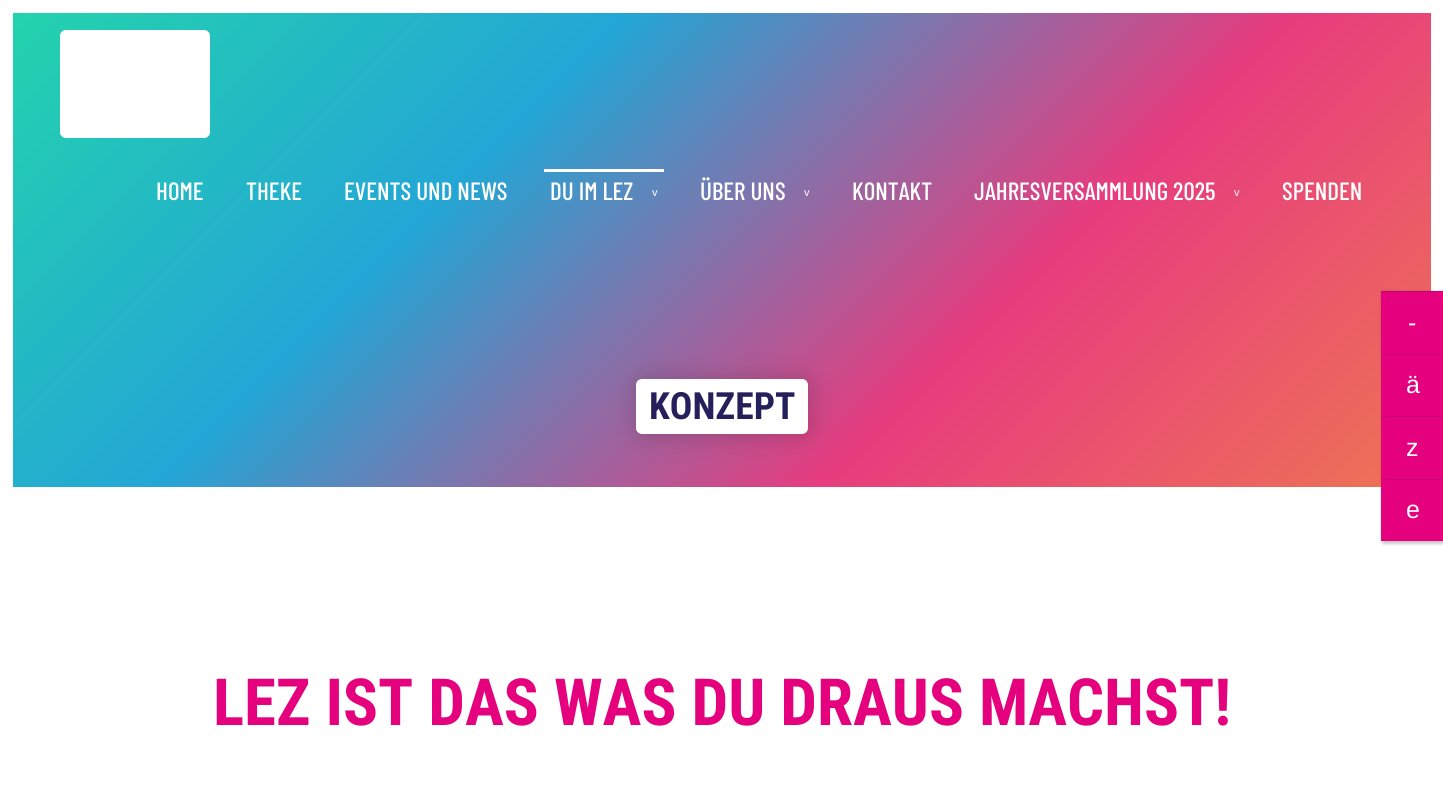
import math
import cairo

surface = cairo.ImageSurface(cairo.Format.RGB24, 1443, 786)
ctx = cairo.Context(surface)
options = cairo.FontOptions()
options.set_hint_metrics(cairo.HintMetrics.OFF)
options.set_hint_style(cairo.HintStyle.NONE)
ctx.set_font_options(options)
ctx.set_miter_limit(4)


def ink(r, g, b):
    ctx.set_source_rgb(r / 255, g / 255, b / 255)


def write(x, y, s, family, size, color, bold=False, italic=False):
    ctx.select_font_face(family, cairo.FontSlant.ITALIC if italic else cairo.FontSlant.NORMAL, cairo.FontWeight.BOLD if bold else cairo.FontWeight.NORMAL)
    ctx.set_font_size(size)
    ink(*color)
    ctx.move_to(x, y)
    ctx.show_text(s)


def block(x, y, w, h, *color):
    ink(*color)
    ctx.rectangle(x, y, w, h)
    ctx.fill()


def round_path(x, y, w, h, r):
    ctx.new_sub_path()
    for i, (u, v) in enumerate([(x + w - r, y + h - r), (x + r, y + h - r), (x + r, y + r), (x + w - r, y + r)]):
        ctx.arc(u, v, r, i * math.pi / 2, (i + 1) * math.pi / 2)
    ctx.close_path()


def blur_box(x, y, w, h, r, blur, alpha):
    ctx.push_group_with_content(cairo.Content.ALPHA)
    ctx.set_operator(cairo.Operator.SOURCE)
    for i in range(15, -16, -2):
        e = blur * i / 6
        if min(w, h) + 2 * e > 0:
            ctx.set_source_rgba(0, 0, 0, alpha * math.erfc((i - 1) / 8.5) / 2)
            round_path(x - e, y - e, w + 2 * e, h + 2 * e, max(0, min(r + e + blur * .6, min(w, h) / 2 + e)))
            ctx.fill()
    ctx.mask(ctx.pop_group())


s1 = dict(family="Barlow Condensed Medium", size=25, color=(255, 255, 255))
s2 = dict(family="Liberation Sans", size=11, color=(255, 255, 255))
s3 = dict(family="Liberation Sans", size=25, color=(255, 255, 255))
s4 = dict(family="Roboto Condensed", size=37.5, color=(37, 32, 91), bold=True)
s5 = dict(family="Roboto Condensed", size=65, color=(229, 0, 125), bold=True)

ink(255, 255, 255)
ctx.paint()
gradient = cairo.LinearGradient(1208, 736, 236, -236)
gradient.add_color_stop_rgba(0, 0.933, 0.467, 0.322, 1)
gradient.add_color_stop_rgba(0.33, 0.906, 0.235, 0.494, 1)
gradient.add_color_stop_rgba(0.67, 0.137, 0.651, 0.835, 1)
gradient.add_color_stop_rgba(1, 0.137, 0.835, 0.671, 1)
ctx.set_source(gradient)
ctx.rectangle(13, 13, 1418, 474)
ctx.fill()
ink(255, 255, 255)
round_path(60, 30, 150, 108, 6)
ctx.fill()
write(156, 200, "HOME", **s1)
write(246, 200, "THEKE", **s1)
write(344, 200, "EVENTS UND NEWS", **s1)
block(544, 169, 120, 3, 255, 255, 255)
write(550, 200, "DU IM LEZ", **s1)
write(652, 196, "v", **s2)
write(700, 200, "ÜBER UNS", **s1)
write(804, 196, "v", **s2)
write(852, 200, "KONTAKT", **s1)
write(974, 200, "JAHRESVERSAMMLUNG 2025", **s1)
write(1234, 196, "v", **s2)
write(1282, 200, "SPENDEN", **s1)
ink(0, 0, 0)
blur_box(1383, 293, 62, 250, 0, 2, 0.3)
blur_box(1383, 293, 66, 62, 0, 2, 0.3)
block(1381, 292, 62, 62, 229, 0, 125)
block(1381, 291, 62, 1, 202, 2, 111)
write(1408, 331, "-", **s3)
block(1381, 355, 62, 61, 229, 0, 125)
block(1381, 354, 62, 1, 202, 2, 111)
write(1406, 393, "ä", **s3)
block(1381, 417, 62, 62, 229, 0, 125)
block(1381, 416, 62, 1, 202, 2, 111)
write(1406, 456, "z", **s3)
block(1381, 480, 62, 61, 229, 0, 125)
block(1381, 479, 62, 1, 202, 2, 111)
write(1406, 518, "e", **s3)
ink(0, 0, 0)
blur_box(638, 380, 171, 55, 6, 12.5, 0.2)
ink(255, 255, 255)
round_path(636, 379, 172, 55, 6)
ctx.fill()
write(649, 419, "KONZEPT", **s4)
write(213, 725, "LEZ IST DAS WAS DU DRAUS MACHST!", **s5)
surface.write_to_png("screenshot.png")
